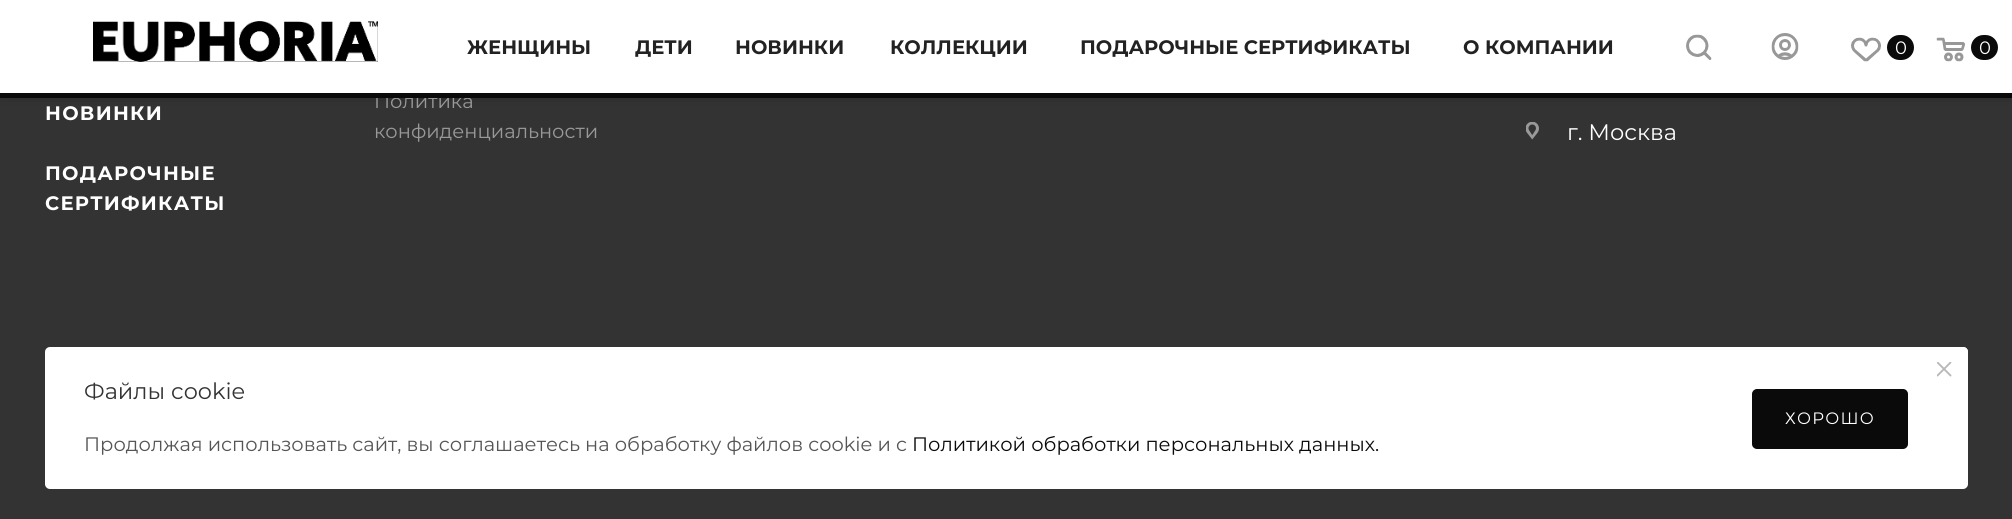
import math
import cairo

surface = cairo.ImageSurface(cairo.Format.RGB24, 2012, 519)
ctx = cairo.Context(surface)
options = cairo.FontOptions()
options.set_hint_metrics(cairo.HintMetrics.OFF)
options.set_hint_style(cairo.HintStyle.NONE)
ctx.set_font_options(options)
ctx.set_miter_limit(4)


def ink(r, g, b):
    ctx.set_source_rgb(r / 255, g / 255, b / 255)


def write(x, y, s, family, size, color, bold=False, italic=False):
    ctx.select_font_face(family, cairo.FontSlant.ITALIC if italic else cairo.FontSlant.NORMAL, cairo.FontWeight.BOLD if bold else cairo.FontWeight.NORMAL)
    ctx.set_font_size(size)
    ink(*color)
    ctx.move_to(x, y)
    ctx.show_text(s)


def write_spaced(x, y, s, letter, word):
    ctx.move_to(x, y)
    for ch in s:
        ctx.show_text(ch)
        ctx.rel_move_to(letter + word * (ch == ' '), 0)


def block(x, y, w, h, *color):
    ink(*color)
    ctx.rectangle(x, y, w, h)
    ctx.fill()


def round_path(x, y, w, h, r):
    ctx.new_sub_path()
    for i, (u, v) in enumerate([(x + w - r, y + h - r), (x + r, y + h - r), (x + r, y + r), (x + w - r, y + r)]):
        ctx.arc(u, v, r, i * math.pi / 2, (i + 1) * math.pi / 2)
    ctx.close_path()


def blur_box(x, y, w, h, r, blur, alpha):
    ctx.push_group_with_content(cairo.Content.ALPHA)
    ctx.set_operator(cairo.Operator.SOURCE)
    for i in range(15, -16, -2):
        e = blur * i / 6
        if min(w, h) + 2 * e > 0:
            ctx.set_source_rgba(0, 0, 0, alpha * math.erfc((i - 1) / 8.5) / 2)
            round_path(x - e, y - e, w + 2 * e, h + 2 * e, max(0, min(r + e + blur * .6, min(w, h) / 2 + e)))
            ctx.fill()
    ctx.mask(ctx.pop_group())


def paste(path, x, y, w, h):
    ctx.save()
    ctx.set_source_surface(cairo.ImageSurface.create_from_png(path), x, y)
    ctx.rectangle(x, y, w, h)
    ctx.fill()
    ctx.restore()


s1 = dict(family="Montserrat", size=19.5, color=(34, 34, 34), bold=True)
s2 = dict(family="Montserrat", size=18, color=(255, 255, 255))
s3 = dict(family="Montserrat", size=19.5, color=(153, 153, 153))
s4 = dict(family="Montserrat", size=22.5, color=(255, 255, 255))
s5 = dict(family="Montserrat", size=22.5, color=(51, 51, 51))
s6 = dict(family="Montserrat", size=19.5, color=(85, 85, 85))
s7 = dict(family="Montserrat", size=19.5, color=(10, 10, 10))

ink(51, 51, 51)
ctx.paint()
ink(0, 0, 0)
blur_box(0, 2, 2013, 97, 0, 4, 0.14)
block(0, 0, 2012, 93, 255, 255, 255)
block(93, 21, 285, 41, 8, 7, 7)
paste("pic1.png", 93, 21, 285, 41)
write(467, 54, "ЖЕНЩИНЫ", **s1)
write(635, 54, "ДЕТИ", **s1)
write(735, 54, "НОВИНКИ", **s1)
write(890, 54, "КОЛЛЕКЦИИ", **s1)
write(1080, 54, "ПОДАРОЧНЫЕ СЕРТИФИКАТЫ", **s1)
write(1463, 54, "О КОМПАНИИ", **s1)
paste("pic2.png", 1686, 34, 26, 26)
paste("pic3.png", 1771, 33, 28, 27)
paste("pic4.png", 1851, 37, 30, 25)
ink(10, 10, 10)
round_path(1887, 35, 27, 25, 12.5)
ctx.fill()
write(1895, 54, "0", **s2)
paste("pic5.png", 1936, 37, 29, 25)
ink(10, 10, 10)
round_path(1971, 35, 27, 25, 12.5)
ctx.fill()
write(1979, 54, "0", **s2)
write(374, 108, "Политика", **s3)
block(0, 93, 2012, 5, 10, 10, 10)
ctx.select_font_face("Montserrat", cairo.FontSlant.NORMAL, cairo.FontWeight.BOLD)
ink(255, 255, 255)
write_spaced(45, 120, "НОВИНКИ", 1.25, 0)
write_spaced(45, 180, "ПОДАРОЧНЫЕ", 1.25, 0)
write_spaced(45, 210, "СЕРТИФИКАТЫ", 1.25, 0)
write(374, 138, "конфиденциальности", **s3)
paste("pic6.png", 1526, 122, 13, 18)
write(1567, 140, "г. Москва", **s4)
round_path(45, 347, 1923, 142, 5)
ctx.fill()
ctx.new_path()
ctx.move_to(1920, 347)
ctx.line_to(1963, 347)
ctx.curve_to(1966, 347, 1968, 349, 1968, 352)
ctx.line_to(1968, 395)
ctx.line_to(1925, 395)
ctx.curve_to(1922, 395, 1920, 393, 1920, 390)
ctx.close_path()
ctx.fill()
paste("pic7.png", 1937, 362, 15, 15)
write(84, 399, "Файлы cookie", **s5)
write(84, 451, "Продолжая использовать сайт, вы соглашаетесь на обработку файлов cookie и c", **s6)
write(912, 451, "Политикой обработки персональных данных.", **s7)
round_path(1753, 390, 154, 58, 4)
ctx.fill_preserve()
ctx.stroke()
ctx.set_font_size(16.5)
ink(255, 255, 255)
write_spaced(1785, 424, "ХОРОШО", 1.25, 0)
surface.write_to_png("screenshot.png")
